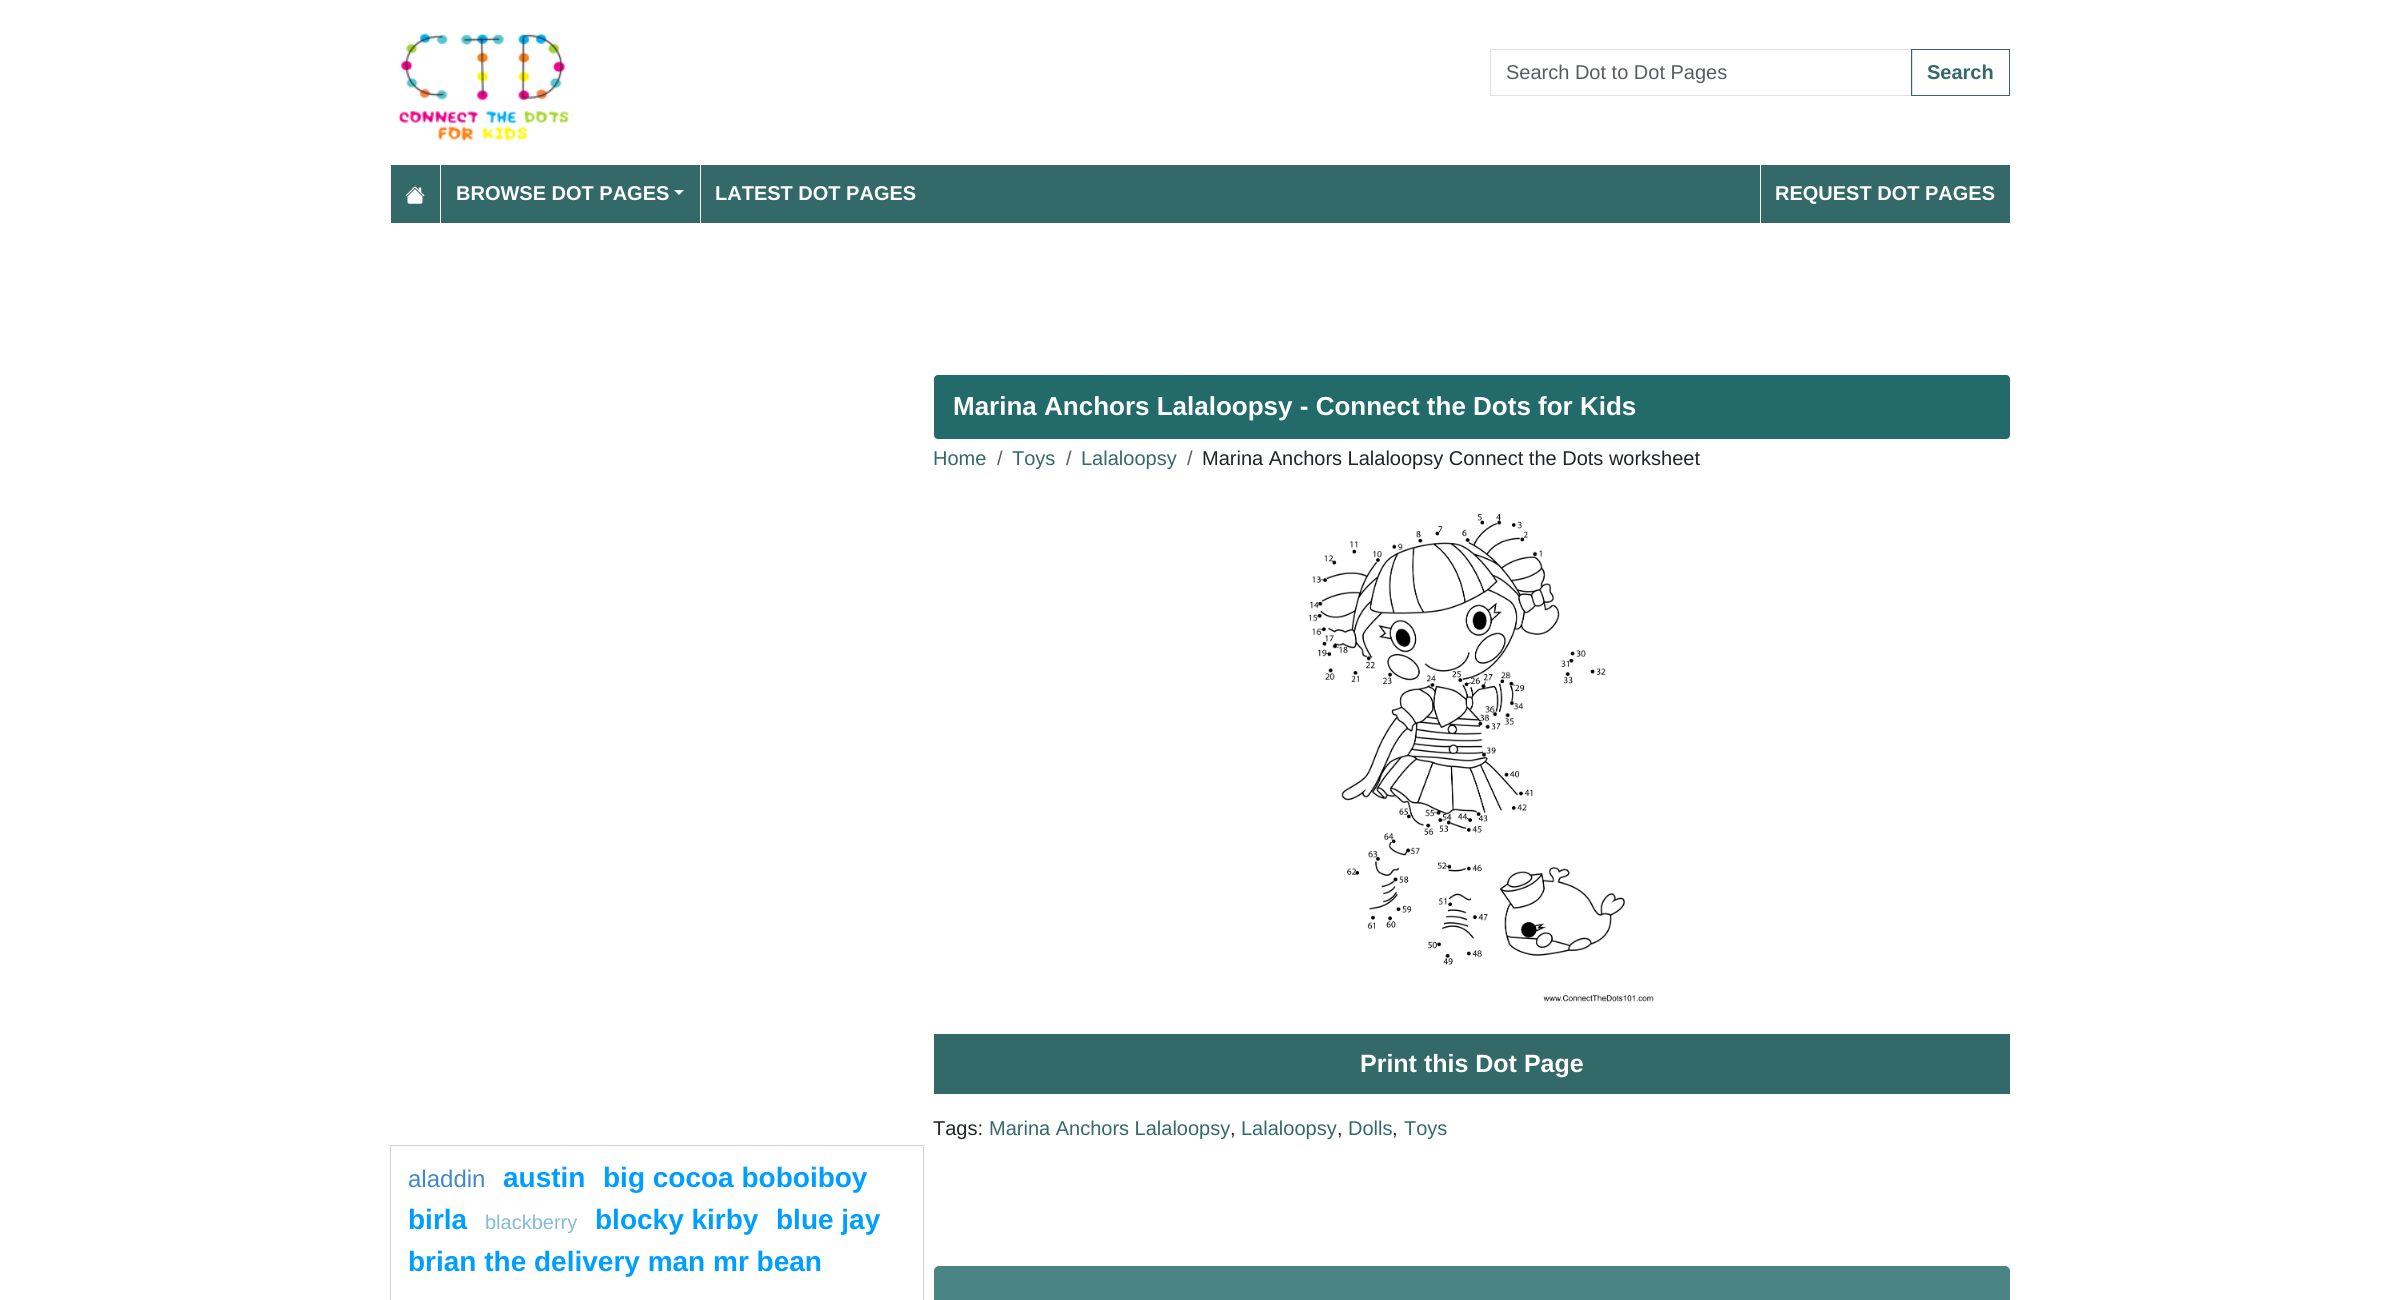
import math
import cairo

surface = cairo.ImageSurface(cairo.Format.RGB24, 2399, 1300)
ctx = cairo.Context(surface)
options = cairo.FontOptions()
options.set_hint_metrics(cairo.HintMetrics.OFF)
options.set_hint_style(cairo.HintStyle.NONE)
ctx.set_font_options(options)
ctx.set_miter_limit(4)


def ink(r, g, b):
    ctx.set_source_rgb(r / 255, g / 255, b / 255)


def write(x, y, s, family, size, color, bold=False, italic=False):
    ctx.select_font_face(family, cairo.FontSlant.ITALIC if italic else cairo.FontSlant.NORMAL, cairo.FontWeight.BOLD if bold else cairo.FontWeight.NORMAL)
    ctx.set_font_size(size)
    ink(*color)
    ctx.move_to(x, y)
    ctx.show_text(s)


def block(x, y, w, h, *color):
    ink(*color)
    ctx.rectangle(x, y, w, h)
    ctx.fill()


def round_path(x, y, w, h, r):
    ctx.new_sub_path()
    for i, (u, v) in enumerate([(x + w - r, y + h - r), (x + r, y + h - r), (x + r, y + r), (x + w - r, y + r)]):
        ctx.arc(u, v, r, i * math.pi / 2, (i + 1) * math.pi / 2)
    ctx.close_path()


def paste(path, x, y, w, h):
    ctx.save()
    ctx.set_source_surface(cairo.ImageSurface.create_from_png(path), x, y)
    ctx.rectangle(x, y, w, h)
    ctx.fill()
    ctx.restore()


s1 = dict(family="Liberation Sans", size=20, color=(89, 92, 95))
s2 = dict(family="Liberation Sans", size=20, color=(52, 105, 105), bold=True)
s3 = dict(family="Liberation Sans", size=20, color=(255, 255, 255), bold=True)
s4 = dict(family="Liberation Sans", size=26, color=(255, 255, 255), bold=True)
s5 = dict(family="Liberation Sans", size=20, color=(52, 105, 105))
s6 = dict(family="Liberation Sans", size=20, color=(33, 37, 41))
s7 = dict(family="Liberation Sans", size=25, color=(255, 255, 255), bold=True)
s8 = dict(family="Liberation Sans", size=24, color=(65, 136, 207))
s9 = dict(family="Liberation Sans", size=28, color=(0, 158, 255), bold=True)
s10 = dict(family="Liberation Sans", size=20, color=(131, 188, 216))

ink(255, 255, 255)
ctx.paint()
paste("pic1.png", 398, 33, 171, 109)
ctx.rectangle(1490.5, 49.5, 422, 46)
ink(222, 226, 230)
ctx.set_line_width(1)
ctx.stroke()
write(1506, 79, "Search Dot to Dot Pages", **s1)
ctx.rectangle(1911.5, 49.5, 98, 46)
ink(52, 105, 105)
ctx.stroke()
write(1927, 79, "Search", **s2)
block(391, 165, 1619, 58, 52, 105, 105)
paste("pic2.png", 405, 186, 20, 18)
block(440, 165, 1, 58, 255, 255, 255)
write(456, 200, "BROWSE DOT PAGES", **s3)
ctx.new_path()
ctx.move_to(674, 190)
ctx.line_to(684, 190)
ctx.line_to(679, 195)
ctx.close_path()
ctx.fill()
block(700, 165, 1, 58, 255, 255, 255)
write(715, 200, "LATEST DOT PAGES", **s3)
block(1760, 165, 1, 58, 255, 255, 255)
write(1775, 200, "REQUEST DOT PAGES", **s3)
ink(35, 107, 107)
round_path(934, 375, 1076, 64, 4)
ctx.fill()
write(953, 415, "Marina Anchors Lalaloopsy - Connect the Dots for Kids", **s4)
write(933, 465, "Home", **s5)
write(997, 465, "/", **s1)
write(1012, 465, "Toys", **s5)
write(1066, 465, "/", **s1)
write(1081, 465, "Lalaloopsy", **s5)
write(1187, 465, "/", **s1)
write(1202, 465, "Marina Anchors Lalaloopsy Connect the Dots worksheet", **s6)
paste("pic3.png", 1308, 513, 346, 489)
block(934, 1034, 1076, 60, 52, 105, 105)
write(1360, 1072, "Print this Dot Page", **s7)
write(933, 1135, "Tags:", **s6)
write(989, 1135, "Marina Anchors Lalaloopsy", **s5)
write(1230, 1135, ",", **s6)
write(1241, 1135, "Lalaloopsy", **s5)
write(1337, 1135, ",", **s6)
write(1348, 1135, "Dolls", **s5)
write(1392, 1135, ",", **s6)
write(1404, 1135, "Toys", **s5)
ink(74, 132, 132)
round_path(934, 1266, 1076, 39, 5)
ctx.fill()
ctx.rectangle(390.5, 1145.5, 533, 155)
ink(210, 210, 210)
ctx.stroke()
write(408, 1187, "aladdin", **s8)
write(503, 1187, "austin", **s9)
write(603, 1187, "big cocoa boboiboy", **s9)
write(408, 1229, "birla", **s9)
write(485, 1229, "blackberry", **s10)
write(595, 1229, "blocky kirby", **s9)
write(776, 1229, "blue jay", **s9)
write(408, 1271, "brian the delivery man mr bean", **s9)
surface.write_to_png("screenshot.png")
